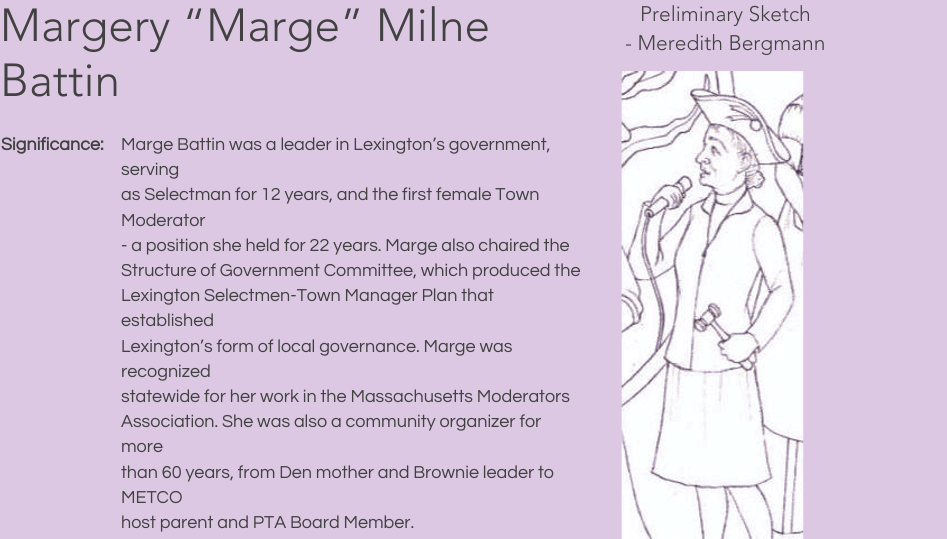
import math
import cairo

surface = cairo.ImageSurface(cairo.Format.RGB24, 947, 539)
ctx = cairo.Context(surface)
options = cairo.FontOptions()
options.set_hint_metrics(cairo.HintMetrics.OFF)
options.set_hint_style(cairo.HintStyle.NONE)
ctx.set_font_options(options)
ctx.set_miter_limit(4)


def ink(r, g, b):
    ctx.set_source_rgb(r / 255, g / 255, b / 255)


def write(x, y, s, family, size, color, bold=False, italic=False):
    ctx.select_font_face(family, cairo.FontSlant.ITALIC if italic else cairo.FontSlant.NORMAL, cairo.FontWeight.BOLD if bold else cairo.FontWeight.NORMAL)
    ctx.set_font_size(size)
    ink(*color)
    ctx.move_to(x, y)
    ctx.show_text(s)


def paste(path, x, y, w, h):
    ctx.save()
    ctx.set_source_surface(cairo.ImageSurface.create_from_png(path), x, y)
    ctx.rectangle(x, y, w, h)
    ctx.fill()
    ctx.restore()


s1 = dict(family="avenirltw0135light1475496 Light", size=46, color=(65, 65, 65))
s2 = dict(family="Questrial", size=18, color=(65, 65, 65), bold=True)
s3 = dict(family="Questrial", size=18, color=(65, 65, 65))
s4 = dict(family="avenirltw0135light1475496 Light", size=21, color=(65, 65, 65))

ink(220, 200, 227)
ctx.paint()
write(0, 41, "Margery “Marge” Milne", **s1)
write(0, 96, "Battin", **s1)
write(1, 150, "Significance:", **s2)
write(121, 150, "Marge Battin was a leader in Lexington’s government,", **s3)
write(121, 175, "serving", **s3)
write(121, 200, "as Selectman for 12 years, and the first female Town", **s3)
write(121, 226, "Moderator", **s3)
write(121, 251, "- a position she held for 22 years. Marge also chaired the", **s3)
write(121, 276, "Structure of Government Committee, which produced the", **s3)
write(121, 301, "Lexington Selectmen-Town Manager Plan that", **s3)
write(121, 326, "established", **s3)
write(121, 352, "Lexington’s form of local governance. Marge was", **s3)
write(121, 377, "recognized", **s3)
write(121, 402, "statewide for her work in the Massachusetts Moderators", **s3)
write(121, 427, "Association. She was also a community organizer for", **s3)
write(121, 452, "more", **s3)
write(121, 478, "than 60 years, from Den mother and Brownie leader to", **s3)
write(121, 503, "METCO", **s3)
write(121, 528, "host parent and PTA Board Member.", **s3)
write(640, 21, "Preliminary Sketch", **s4)
write(625, 50, "- Meredith Bergmann", **s4)
paste("pic1.png", 621, 71, 183, 468)
surface.write_to_png("screenshot.png")
